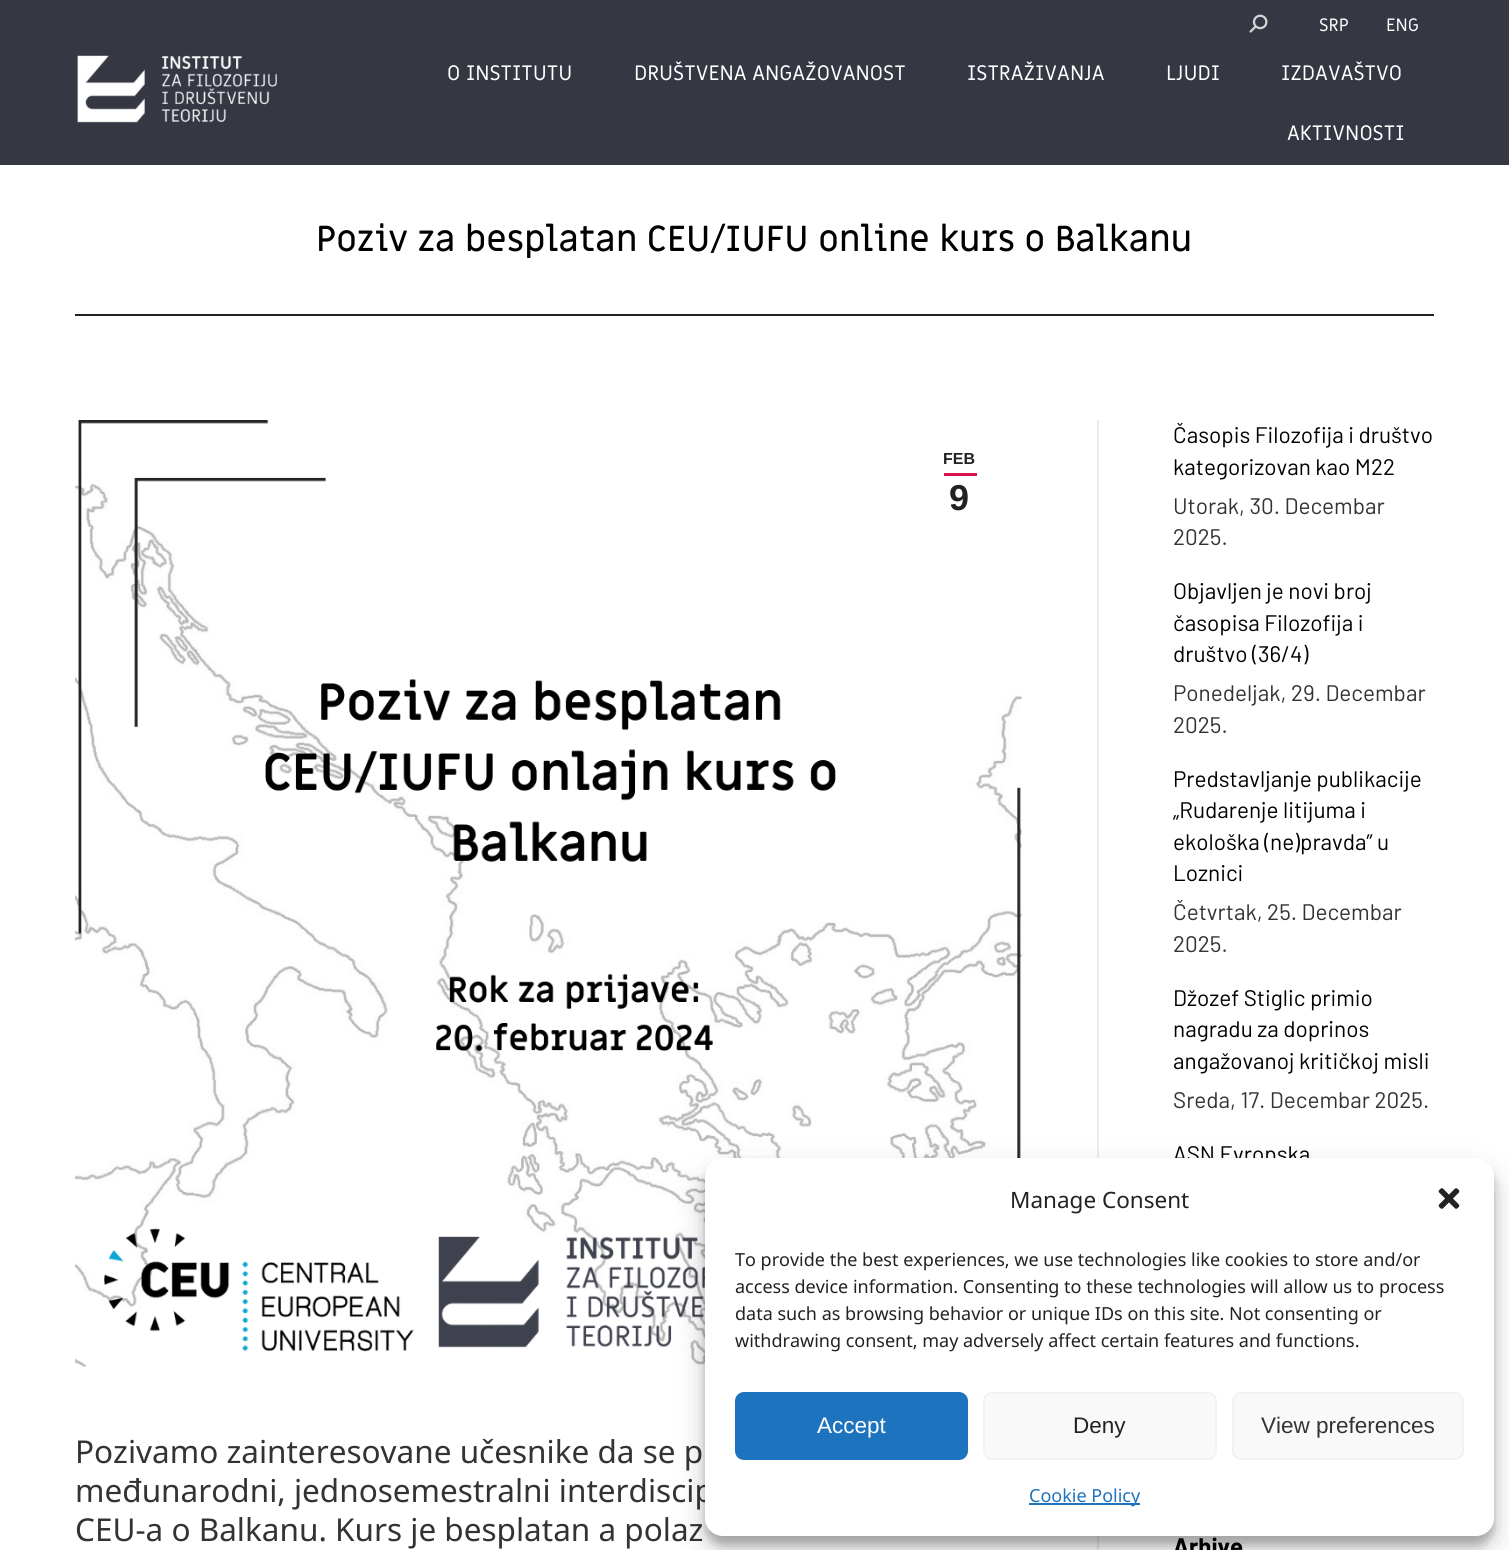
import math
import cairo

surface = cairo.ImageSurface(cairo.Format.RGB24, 1509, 1550)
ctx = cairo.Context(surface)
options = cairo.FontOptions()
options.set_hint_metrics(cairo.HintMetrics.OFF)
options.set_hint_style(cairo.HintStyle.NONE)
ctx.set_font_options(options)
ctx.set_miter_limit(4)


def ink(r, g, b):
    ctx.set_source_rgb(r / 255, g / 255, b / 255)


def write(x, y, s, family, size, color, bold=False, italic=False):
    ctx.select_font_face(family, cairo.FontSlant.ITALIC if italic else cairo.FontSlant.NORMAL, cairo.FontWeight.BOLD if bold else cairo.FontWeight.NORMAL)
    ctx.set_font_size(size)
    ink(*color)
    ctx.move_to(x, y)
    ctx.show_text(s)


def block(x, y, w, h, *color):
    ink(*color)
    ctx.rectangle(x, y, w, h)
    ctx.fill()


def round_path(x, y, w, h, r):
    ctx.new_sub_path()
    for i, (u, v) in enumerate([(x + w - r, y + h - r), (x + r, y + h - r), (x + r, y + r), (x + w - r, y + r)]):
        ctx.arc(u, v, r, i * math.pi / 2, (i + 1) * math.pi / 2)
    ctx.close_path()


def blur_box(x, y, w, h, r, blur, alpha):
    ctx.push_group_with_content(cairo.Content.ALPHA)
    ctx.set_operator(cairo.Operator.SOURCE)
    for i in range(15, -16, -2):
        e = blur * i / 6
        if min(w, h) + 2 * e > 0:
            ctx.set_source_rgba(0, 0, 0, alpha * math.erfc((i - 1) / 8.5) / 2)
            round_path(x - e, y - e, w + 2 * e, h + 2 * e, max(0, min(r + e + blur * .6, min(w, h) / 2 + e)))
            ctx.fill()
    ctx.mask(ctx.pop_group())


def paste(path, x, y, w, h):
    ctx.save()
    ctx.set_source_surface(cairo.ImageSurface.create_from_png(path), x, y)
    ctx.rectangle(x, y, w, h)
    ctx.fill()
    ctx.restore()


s1 = dict(family="Miriam Libre", size=18, color=(255, 255, 255))
s2 = dict(family="Miriam Libre", size=21, color=(255, 255, 255))
s3 = dict(family="Miriam Libre Medium", size=36, color=(0, 0, 0))
s4 = dict(family="Liberation Sans", size=16, color=(34, 34, 34), bold=True)
s5 = dict(family="Liberation Sans", size=36, color=(34, 34, 34), bold=True)
s6 = dict(family="Noto Sans", size=31.5, color=(51, 51, 51))
s7 = dict(family="Barlow", size=22.5, color=(0, 0, 0))
s8 = dict(family="Barlow", size=22.5, color=(51, 51, 51))
s9 = dict(family="Barlow", size=24, color=(0, 0, 0), bold=True)
s10 = dict(family="Noto Sans", size=22.5, color=(34, 34, 34))
s11 = dict(family="Noto Sans", size=18, color=(34, 34, 34))
s12 = dict(family="Liberation Sans", size=22.5, color=(255, 255, 255))
s13 = dict(family="Liberation Sans", size=22.5, color=(34, 34, 34))
s14 = dict(family="Liberation Sans", size=22.5, color=(51, 51, 51))
s15 = dict(family="Noto Sans", size=18, color=(30, 115, 190))

ink(255, 255, 255)
ctx.paint()
block(0, 0, 1509, 165, 53, 56, 67)
paste("pic1.png", 1249, 14, 19, 19)
write(1319, 31, "SRP", **s1)
write(1386, 31, "ENG", **s1)
paste("pic2.png", 77, 55, 200, 68)
write(447, 80, "O INSTITUTU", **s2)
write(634, 80, "DRUŠTVENA ANGAŽOVANOST", **s2)
write(967, 80, "ISTRAŽIVANJA", **s2)
write(1166, 80, "LJUDI", **s2)
write(1281, 80, "IZDAVAŠTVO", **s2)
write(1287, 140, "AKTIVNOSTI", **s2)
write(316, 251, "Poziv za besplatan CEU/IUFU online kurs o Balkanu", **s3)
block(75, 314, 1359, 2, 33, 33, 33)
paste("pic3.png", 75, 420, 947, 947)
write(943, 464, "FEB", **s4)
block(944, 473, 33, 3, 220, 18, 76)
write(949, 510, "9", **s5)
write(75, 1463, "Pozivamo zainteresovane učesnike da se p", **s6)
write(75, 1502, "međunarodni, jednosemestralni interdiscip", **s6)
write(75, 1541, "CEU-a o Balkanu. Kurs je besplatan a polaz", **s6)
block(1097, 420, 2, 1130, 235, 235, 235)
write(1173, 443, "Časopis Filozofija i društvo", **s7)
write(1173, 475, "kategorizovan kao M22", **s7)
write(1173, 514, "Utorak, 30. Decembar", **s8)
write(1173, 545, "2025.", **s8)
write(1173, 599, "Objavljen je novi broj", **s7)
write(1173, 631, "časopisa Filozofija i", **s7)
write(1173, 662, "društvo (36/4)", **s7)
write(1173, 701, "Ponedeljak, 29. Decembar", **s8)
write(1173, 733, "2025.", **s8)
write(1173, 787, "Predstavljanje publikacije", **s7)
write(1173, 818, "„Rudarenje litijuma i", **s7)
write(1173, 850, "ekološka (ne)pravda” u", **s7)
write(1173, 881, "Loznici", **s7)
write(1173, 920, "Četvrtak, 25. Decembar", **s8)
write(1173, 952, "2025.", **s8)
write(1173, 1006, "Džozef Stiglic primio", **s7)
write(1173, 1037, "nagradu za doprinos", **s7)
write(1173, 1069, "angažovanoj kritičkoj misli", **s7)
write(1173, 1108, "Sreda, 17. Decembar 2025.", **s8)
write(1173, 1162, "ASN Evropska", **s7)
write(1173, 1555, "Arhive", **s9)
ink(0, 0, 0)
blur_box(705, 1167, 789, 378, 18, 4.5, 0.23)
blur_box(705, 1173, 789, 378, 18, 15, 0.19)
ink(255, 255, 255)
round_path(705, 1158, 789, 378, 18)
ctx.fill()
write(1010, 1208, "Manage Consent", **s10)
paste("pic4.png", 1438, 1188, 22, 21)
write(735, 1266, "To provide the best experiences, we use technologies like cookies to store and/or", **s11)
write(735, 1293, "access device information. Consenting to these technologies will allow us to process", **s11)
write(735, 1320, "data such as browsing behavior or unique IDs on this site. Not consenting or", **s11)
write(735, 1347, "withdrawing consent, may adversely affect certain features and functions.", **s11)
ink(30, 115, 190)
round_path(736, 1393, 231, 66, 8)
ctx.fill_preserve()
ctx.stroke()
write(817, 1433, "Accept", **s12)
ink(249, 249, 249)
round_path(984, 1393, 232, 66, 8)
ctx.fill_preserve()
ink(242, 242, 242)
ctx.stroke()
write(1073, 1433, "Deny", **s13)
ink(249, 249, 249)
round_path(1233, 1393, 230, 66, 8)
ctx.fill_preserve()
ink(242, 242, 242)
ctx.stroke()
write(1261, 1433, "View preferences", **s14)
block(1029, 1503, 111, 2, 30, 115, 190)
write(1029, 1502, "Cookie Policy", **s15)
surface.write_to_png("screenshot.png")
